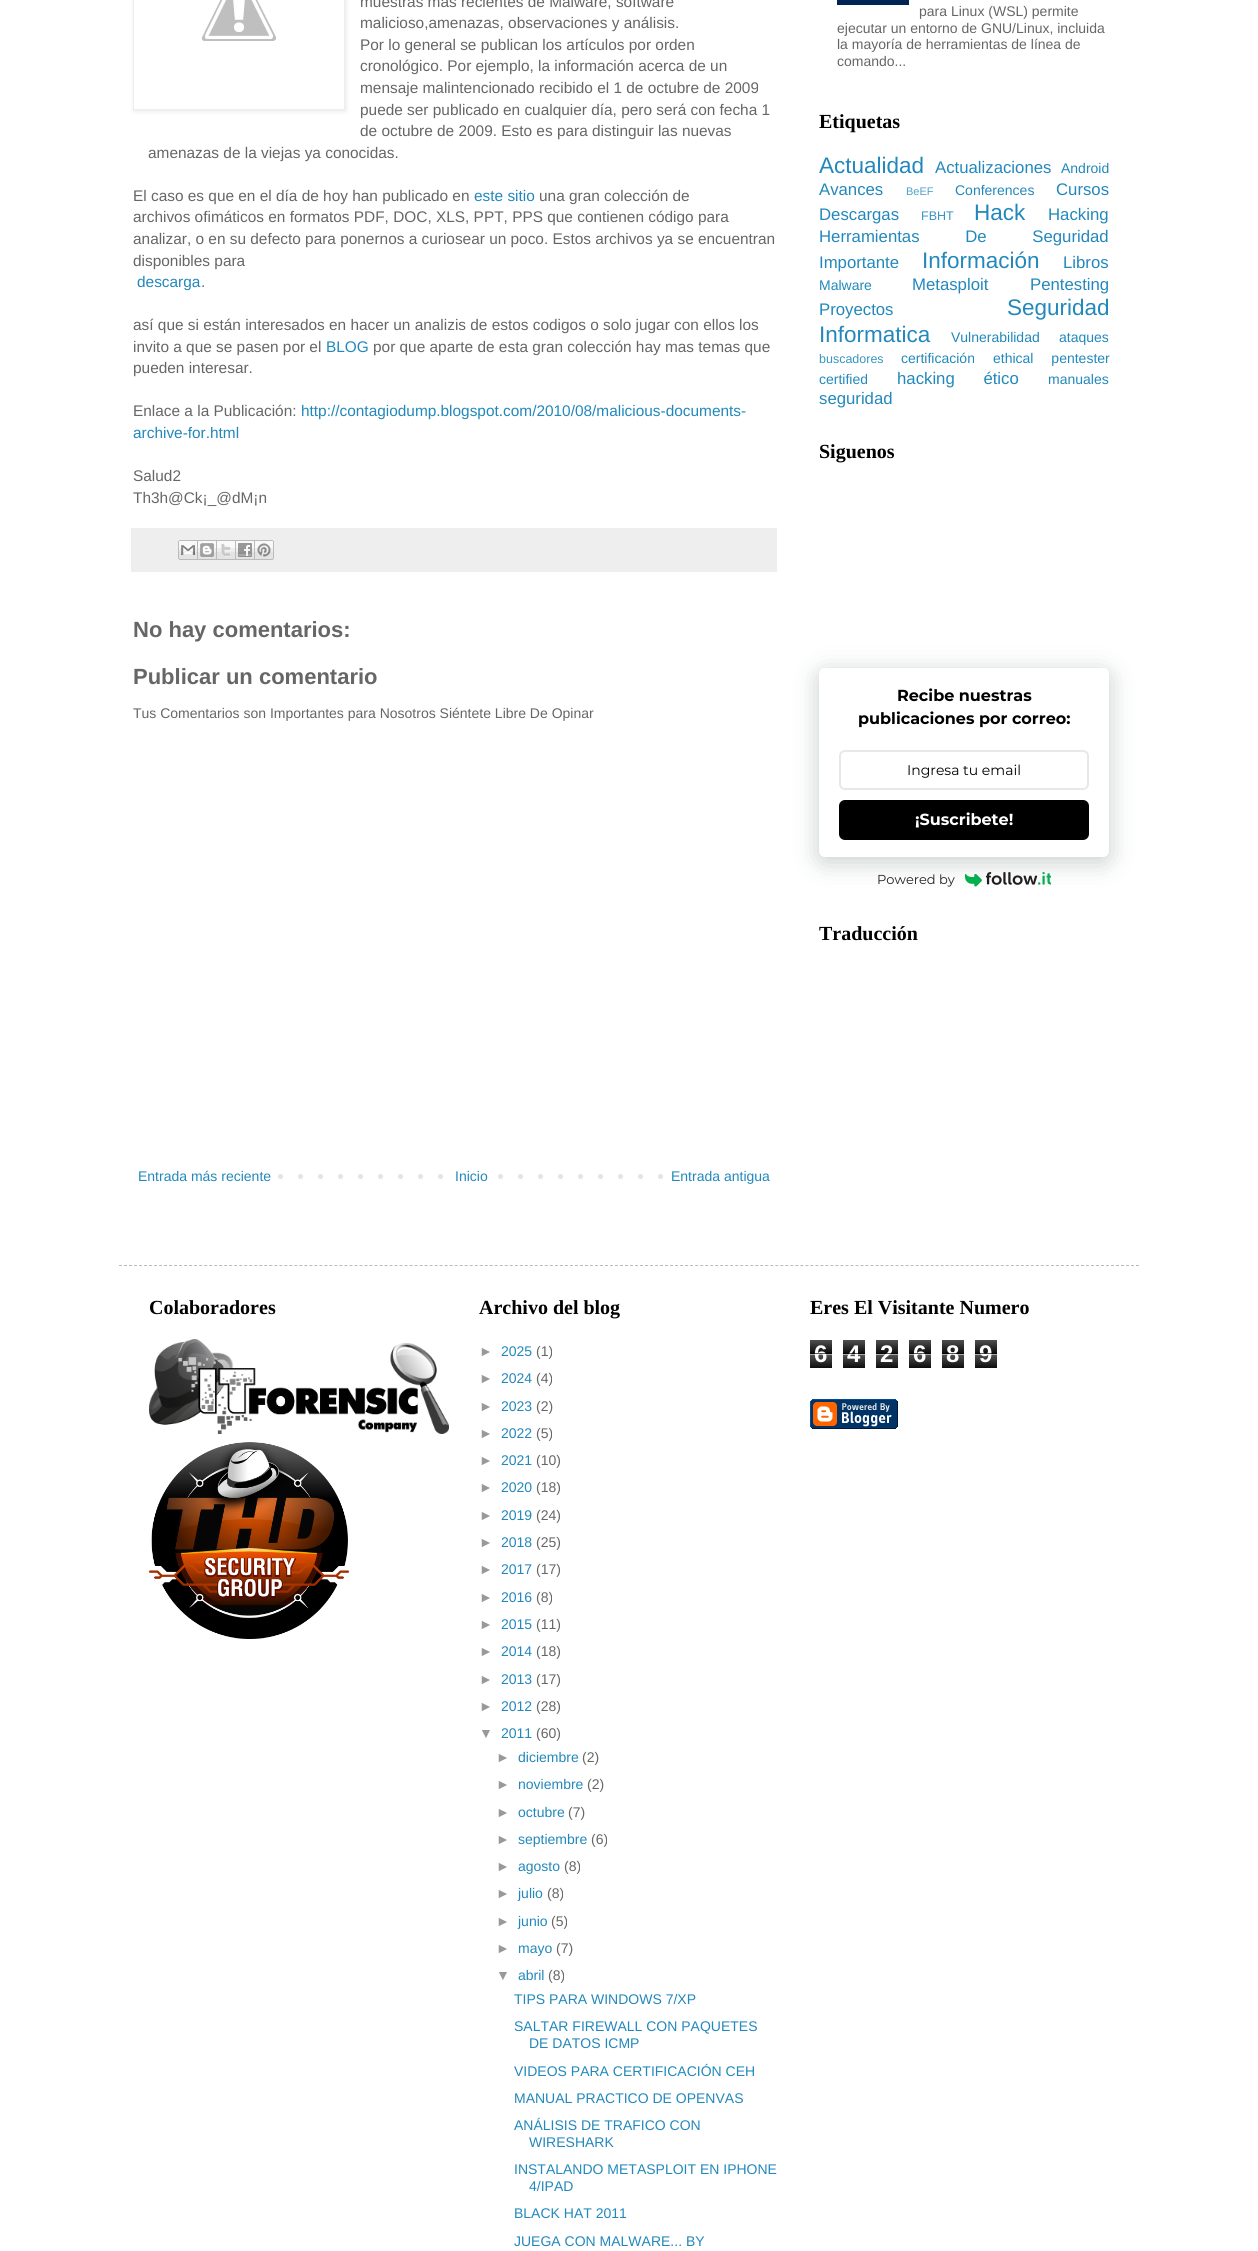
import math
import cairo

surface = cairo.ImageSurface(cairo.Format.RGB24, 1258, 2251)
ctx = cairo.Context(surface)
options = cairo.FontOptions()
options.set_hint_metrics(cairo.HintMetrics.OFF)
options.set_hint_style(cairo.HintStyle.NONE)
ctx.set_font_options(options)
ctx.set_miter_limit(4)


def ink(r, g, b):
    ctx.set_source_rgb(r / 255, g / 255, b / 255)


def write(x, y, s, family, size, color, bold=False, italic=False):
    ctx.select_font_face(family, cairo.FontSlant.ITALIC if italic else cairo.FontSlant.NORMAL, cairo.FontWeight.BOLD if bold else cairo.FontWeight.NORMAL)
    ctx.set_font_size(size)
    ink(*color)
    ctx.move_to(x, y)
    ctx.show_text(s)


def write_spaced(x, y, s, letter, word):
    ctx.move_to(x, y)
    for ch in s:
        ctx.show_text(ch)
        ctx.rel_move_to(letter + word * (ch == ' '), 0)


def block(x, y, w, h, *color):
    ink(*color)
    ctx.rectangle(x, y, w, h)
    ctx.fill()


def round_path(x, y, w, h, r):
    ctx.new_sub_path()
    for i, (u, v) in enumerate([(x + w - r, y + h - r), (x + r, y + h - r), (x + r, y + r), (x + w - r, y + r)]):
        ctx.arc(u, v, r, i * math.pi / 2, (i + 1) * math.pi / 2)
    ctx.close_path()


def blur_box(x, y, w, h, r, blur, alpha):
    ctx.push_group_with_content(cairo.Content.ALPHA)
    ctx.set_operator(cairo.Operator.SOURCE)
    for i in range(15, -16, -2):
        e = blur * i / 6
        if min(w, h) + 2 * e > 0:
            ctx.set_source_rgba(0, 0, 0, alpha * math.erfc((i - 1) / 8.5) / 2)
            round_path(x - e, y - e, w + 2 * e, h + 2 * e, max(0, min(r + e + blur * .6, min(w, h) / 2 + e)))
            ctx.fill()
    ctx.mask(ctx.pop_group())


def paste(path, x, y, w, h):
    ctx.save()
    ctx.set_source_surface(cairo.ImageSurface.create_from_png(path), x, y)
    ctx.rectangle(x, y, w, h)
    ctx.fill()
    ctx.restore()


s1 = dict(family="Liberation Sans", size=15.4, color=(102, 102, 102))
s2 = dict(family="Liberation Sans", size=15.4, color=(34, 136, 187))
s3 = dict(family="Liberation Sans", size=22, color=(102, 102, 102), bold=True)
s4 = dict(family="Liberation Sans", size=14, color=(102, 102, 102))
s5 = dict(family="Liberation Sans", size=14, color=(34, 136, 187))
s6 = dict(family="Liberation Serif", size=20, color=(0, 0, 0), bold=True)
s7 = dict(family="Liberation Sans", size=22.5, color=(34, 136, 187))
s8 = dict(family="Liberation Sans", size=16.75, color=(34, 136, 187))
s9 = dict(family="Liberation Sans", size=11, color=(78, 160, 201))
s10 = dict(family="Liberation Sans", size=12.5, color=(56, 148, 194))
s11 = dict(family="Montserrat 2 Thin", size=16, color=(0, 0, 0))
s12 = dict(family="Montserrat Thin", size=14, color=(0, 0, 0))
s13 = dict(family="Montserrat 2 Thin", size=16, color=(255, 255, 255))
s14 = dict(family="Montserrat Thin", size=13, color=(35, 31, 32))
s15 = dict(family="Liberation Sans", size=14, color=(153, 153, 153))
s16 = dict(family="Liberation Sans", size=24, color=(255, 255, 255), bold=True)

ink(255, 255, 255)
ctx.paint()
ctx.save()
ctx.set_fill_rule(cairo.FillRule.EVEN_ODD)
ctx.new_path()
ctx.move_to(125, 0)
ctx.line_to(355, 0)
ctx.line_to(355, 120)
ctx.line_to(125, 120)
ctx.close_path()
ctx.move_to(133, -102)
ctx.line_to(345, -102)
ctx.line_to(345, 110)
ctx.line_to(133, 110)
ctx.close_path()
ctx.clip()
ink(0, 0, 0)
blur_box(134, -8, 212, 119, 0, 2.5, 0.1)
ctx.restore()
ctx.rectangle(133.5, -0.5, 211, 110)
ink(238, 238, 238)
ctx.set_line_width(1)
ctx.stroke()
paste("pic1.png", 202, 0, 74, 41)
write(360, 7, "muestras más recientes de Malware, software", **s1)
write(360, 28, "malicioso,amenazas, observaciones y análisis.", **s1)
write(360, 50, "Por lo general se publican los artículos por orden", **s1)
write(360, 71, "cronológico. Por ejemplo, la información acerca de un", **s1)
write(360, 93, "mensaje malintencionado recibido el 1 de octubre de 2009", **s1)
write(360, 115, "puede ser publicado en cualquier día, pero será con fecha 1", **s1)
write(360, 136, "de octubre de 2009. Esto es para distinguir las nuevas", **s1)
write(148, 158, "amenazas de la viejas ya conocidas.", **s1)
write(133, 201, "El caso es que en el día de hoy han publicado en", **s1)
write(474, 201, "este sitio", **s2)
write(539, 201, "una gran colección de", **s1)
write(133, 222, "archivos ofimáticos en formatos PDF, DOC, XLS, PPT, PPS que contienen código para", **s1)
write(133, 244, "analizar, o en su defecto para ponernos a curiosear un poco. Estos archivos ya se encuentran", **s1)
write(133, 266, "disponibles para", **s1)
write(137, 287, "descarga", **s2)
write(201, 287, ".", **s1)
write(133, 330, "así que si están interesados en hacer un analizis de estos codigos o solo jugar con ellos los", **s1)
write(133, 352, "invito a que se pasen por el", **s1)
write(326, 352, "BLOG", **s2)
write(373, 352, "por que aparte de esta gran colección hay mas temas que", **s1)
write(133, 373, "pueden interesar.", **s1)
write(133, 416, "Enlace a la Publicación:", **s1)
write(301, 416, "http://contagiodump.blogspot.com/2010/08/malicious-documents-", **s2)
write(133, 438, "archive-for.html", **s2)
write(133, 481, "Salud2", **s1)
write(133, 503, "Th3h@Ck¡_@dM¡n", **s1)
block(131, 528, 646, 44, 238, 238, 238)
paste("pic2.png", 178, 540, 20, 20)
paste("pic3.png", 198, 540, 19, 20)
paste("pic4.png", 217, 540, 19, 20)
paste("pic5.png", 236, 540, 19, 20)
paste("pic6.png", 255, 540, 19, 20)
write(133, 637, "No hay comentarios:", **s3)
write(133, 684, "Publicar un comentario", **s3)
write(133, 718, "Tus Comentarios son Importantes para Nosotros Siéntete Libre De Opinar", **s4)
paste("pic7.png", 278, 1174, 385, 5)
write(138, 1181, "Entrada más reciente", **s5)
block(458, 1174, 26, 5, 255, 255, 255)
write(455, 1181, "Inicio", **s5)
write(671, 1181, "Entrada antigua", **s5)
block(837, 0, 72, 5, 1, 36, 86)
write(919, 16, "para Linux (WSL) permite", **s4)
write(837, 33, "ejecutar un entorno de GNU/Linux, incluida", **s4)
write(837, 49, "la mayoría de herramientas de línea de", **s4)
write(837, 66, "comando...", **s4)
write(819, 128, "Etiquetas", **s6)
write(819, 173, "Actualidad", **s7)
write(935, 173, "Actualizaciones", **s8)
write(1061, 173, "Android", **s5)
write(819, 195, "Avances", **s8)
write(906, 195, "BeEF", **s9)
write(955, 195, "Conferences", **s5)
write(1056, 195, "Cursos", **s8)
write(819, 220, "Descargas", **s8)
write(921, 220, "FBHT", **s10)
write(974, 220, "Hack", **s7)
write(1048, 220, "Hacking", **s8)
write_spaced(819, 242, "Herramientas De Seguridad", 0, 41)
write(819, 268, "Importante", **s8)
write(922, 268, "Información", **s7)
write(1063, 268, "Libros", **s8)
write(819, 290, "Malware", **s5)
write(912, 290, "Metasploit", **s8)
write(1030, 290, "Pentesting", **s8)
write(819, 315, "Proyectos", **s8)
write(1007, 315, "Seguridad", **s7)
write(819, 342, "Informatica", **s7)
write(951, 342, "Vulnerabilidad", **s5)
write(1059, 342, "ataques", **s5)
write(819, 363, "buscadores", **s10)
write(901, 363, "certificación", **s5)
write_spaced(993, 363, "ethical pentester", 0, 14)
write(819, 384, "certified", **s5)
ctx.set_font_size(16.75)
write_spaced(897, 384, "hacking ético", 0, 24)
write(1048, 384, "manuales", **s5)
write(819, 404, "seguridad", **s8)
write(819, 458, "Siguenos", **s6)
ink(34, 60, 47)
blur_box(819, 673, 290, 189, 6, 12.5, 0.25)
ink(255, 255, 255)
round_path(819, 668, 290, 189, 6)
ctx.fill()
write(897, 701, "Recibe nuestras", **s11)
write(858, 724, "publicaciones por correo:", **s11)
round_path(840, 751, 248, 38, 5)
ink(233, 232, 232)
ctx.set_line_width(2)
ctx.stroke()
write(907, 775, "Ingresa tu email", **s12)
round_path(839, 800, 250, 40, 6)
ctx.fill()
write(915, 825, "¡Suscribete!", **s13)
write(877, 884, "Powered by", **s14)
paste("pic8.png", 965, 872, 86, 15)
write(819, 940, "Traducción", **s6)
ctx.new_path()
ctx.move_to(119, 1265.5)
ctx.line_to(1139, 1265.5)
ink(187, 187, 187)
ctx.set_line_width(1)
ctx.set_dash([3, 2.01])
ctx.stroke()
write(149, 1314, "Colaboradores", **s6)
paste("pic9.png", 149, 1339, 300, 95)
paste("pic10.png", 149, 1442, 200, 197)
write(479, 1314, "Archivo del blog", **s6)
write(479, 1356, "►", **s15)
write(501, 1356, "2025", **s5)
write(536, 1356, "(1)", **s4)
write(479, 1383, "►", **s15)
write(501, 1383, "2024", **s5)
write(536, 1383, "(4)", **s4)
write(479, 1411, "►", **s15)
write(501, 1411, "2023", **s5)
write(536, 1411, "(2)", **s4)
write(479, 1438, "►", **s15)
write(501, 1438, "2022", **s5)
write(536, 1438, "(5)", **s4)
write(479, 1465, "►", **s15)
write(501, 1465, "2021", **s5)
write(536, 1465, "(10)", **s4)
write(479, 1492, "►", **s15)
write(501, 1492, "2020", **s5)
write(536, 1492, "(18)", **s4)
write(479, 1520, "►", **s15)
write(501, 1520, "2019", **s5)
write(536, 1520, "(24)", **s4)
write(479, 1547, "►", **s15)
write(501, 1547, "2018", **s5)
write(536, 1547, "(25)", **s4)
write(479, 1574, "►", **s15)
write(501, 1574, "2017", **s5)
write(536, 1574, "(17)", **s4)
write(479, 1602, "►", **s15)
write(501, 1602, "2016", **s5)
write(536, 1602, "(8)", **s4)
write(479, 1629, "►", **s15)
write(501, 1629, "2015", **s5)
write(536, 1629, "(11)", **s4)
write(479, 1656, "►", **s15)
write(501, 1656, "2014", **s5)
write(536, 1656, "(18)", **s4)
write(479, 1684, "►", **s15)
write(501, 1684, "2013", **s5)
write(536, 1684, "(17)", **s4)
write(479, 1711, "►", **s15)
write(501, 1711, "2012", **s5)
write(536, 1711, "(28)", **s4)
write(479, 1738, "▼", **s15)
write(501, 1738, "2011", **s5)
write(536, 1738, "(60)", **s4)
write(496, 1762, "►", **s15)
write(518, 1762, "diciembre", **s5)
write(582, 1762, "(2)", **s4)
write(496, 1789, "►", **s15)
write(518, 1789, "noviembre", **s5)
write(587, 1789, "(2)", **s4)
write(496, 1817, "►", **s15)
write(518, 1817, "octubre", **s5)
write(568, 1817, "(7)", **s4)
write(496, 1844, "►", **s15)
write(518, 1844, "septiembre", **s5)
write(591, 1844, "(6)", **s4)
write(496, 1871, "►", **s15)
write(518, 1871, "agosto", **s5)
write(564, 1871, "(8)", **s4)
write(496, 1898, "►", **s15)
write(518, 1898, "julio", **s5)
write(547, 1898, "(8)", **s4)
write(496, 1926, "►", **s15)
write(518, 1926, "junio", **s5)
write(551, 1926, "(5)", **s4)
write(496, 1953, "►", **s15)
write(518, 1953, "mayo", **s5)
write(556, 1953, "(7)", **s4)
write(496, 1980, "▼", **s15)
write(518, 1980, "abril", **s5)
write(548, 1980, "(8)", **s4)
write(514, 2004, "TIPS PARA WINDOWS 7/XP", **s5)
write(514, 2031, "SALTAR FIREWALL CON PAQUETES", **s5)
write(529, 2048, "DE DATOS ICMP", **s5)
write(514, 2076, "VIDEOS PARA CERTIFICACIÓN CEH", **s5)
write(514, 2103, "MANUAL PRACTICO DE OPENVAS", **s5)
write(514, 2130, "ANÁLISIS DE TRAFICO CON", **s5)
write(529, 2147, "WIRESHARK", **s5)
write(514, 2174, "INSTALANDO METASPLOIT EN IPHONE", **s5)
write(529, 2191, "4/IPAD", **s5)
write(514, 2218, "BLACK HAT 2011", **s5)
write(514, 2246, "JUEGA CON MALWARE... BY", **s5)
write(810, 1314, "Eres El Visitante Numero", **s6)
paste("pic11.png", 810, 1340, 22, 28)
write(814, 1362, "6", **s16)
ctx.set_source_rgba(0, 0, 0, 0.65)
ctx.rectangle(810, 1353, 22, 1)
ctx.fill()
ctx.set_source_rgba(1, 1, 1, 0.65)
ctx.rectangle(810, 1354, 22, 1)
ctx.fill()
paste("pic11.png", 843, 1340, 22, 28)
write(847, 1362, "4", **s16)
ctx.set_source_rgba(0, 0, 0, 0.65)
ctx.rectangle(843, 1353, 22, 1)
ctx.fill()
ctx.set_source_rgba(1, 1, 1, 0.65)
ctx.rectangle(843, 1354, 22, 1)
ctx.fill()
paste("pic11.png", 876, 1340, 22, 28)
write(880, 1362, "2", **s16)
ctx.set_source_rgba(0, 0, 0, 0.65)
ctx.rectangle(876, 1353, 22, 1)
ctx.fill()
ctx.set_source_rgba(1, 1, 1, 0.65)
ctx.rectangle(876, 1354, 22, 1)
ctx.fill()
paste("pic11.png", 909, 1340, 22, 28)
write(913, 1362, "6", **s16)
ctx.set_source_rgba(0, 0, 0, 0.65)
ctx.rectangle(909, 1353, 22, 1)
ctx.fill()
ctx.set_source_rgba(1, 1, 1, 0.65)
ctx.rectangle(909, 1354, 22, 1)
ctx.fill()
paste("pic11.png", 942, 1340, 22, 28)
write(946, 1362, "8", **s16)
ctx.set_source_rgba(0, 0, 0, 0.65)
ctx.rectangle(942, 1353, 22, 1)
ctx.fill()
ctx.set_source_rgba(1, 1, 1, 0.65)
ctx.rectangle(942, 1354, 22, 1)
ctx.fill()
paste("pic11.png", 975, 1340, 22, 28)
write(979, 1362, "9", **s16)
ctx.set_source_rgba(0, 0, 0, 0.65)
ctx.rectangle(975, 1353, 22, 1)
ctx.fill()
ctx.set_source_rgba(1, 1, 1, 0.65)
ctx.rectangle(975, 1354, 22, 1)
ctx.fill()
paste("pic12.png", 810, 1399, 88, 30)
surface.write_to_png("screenshot.png")
